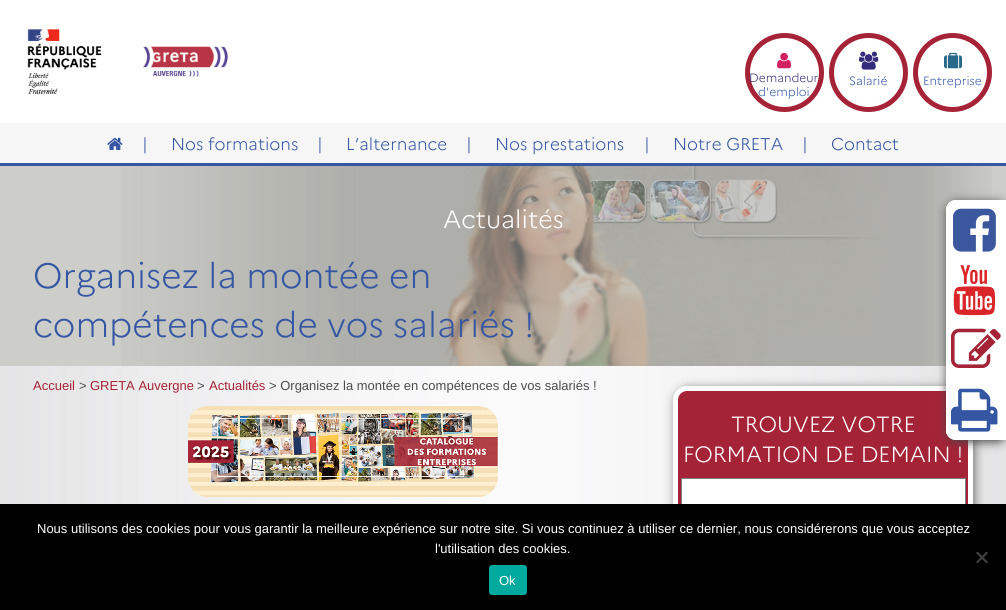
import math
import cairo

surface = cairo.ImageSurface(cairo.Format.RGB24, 1006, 610)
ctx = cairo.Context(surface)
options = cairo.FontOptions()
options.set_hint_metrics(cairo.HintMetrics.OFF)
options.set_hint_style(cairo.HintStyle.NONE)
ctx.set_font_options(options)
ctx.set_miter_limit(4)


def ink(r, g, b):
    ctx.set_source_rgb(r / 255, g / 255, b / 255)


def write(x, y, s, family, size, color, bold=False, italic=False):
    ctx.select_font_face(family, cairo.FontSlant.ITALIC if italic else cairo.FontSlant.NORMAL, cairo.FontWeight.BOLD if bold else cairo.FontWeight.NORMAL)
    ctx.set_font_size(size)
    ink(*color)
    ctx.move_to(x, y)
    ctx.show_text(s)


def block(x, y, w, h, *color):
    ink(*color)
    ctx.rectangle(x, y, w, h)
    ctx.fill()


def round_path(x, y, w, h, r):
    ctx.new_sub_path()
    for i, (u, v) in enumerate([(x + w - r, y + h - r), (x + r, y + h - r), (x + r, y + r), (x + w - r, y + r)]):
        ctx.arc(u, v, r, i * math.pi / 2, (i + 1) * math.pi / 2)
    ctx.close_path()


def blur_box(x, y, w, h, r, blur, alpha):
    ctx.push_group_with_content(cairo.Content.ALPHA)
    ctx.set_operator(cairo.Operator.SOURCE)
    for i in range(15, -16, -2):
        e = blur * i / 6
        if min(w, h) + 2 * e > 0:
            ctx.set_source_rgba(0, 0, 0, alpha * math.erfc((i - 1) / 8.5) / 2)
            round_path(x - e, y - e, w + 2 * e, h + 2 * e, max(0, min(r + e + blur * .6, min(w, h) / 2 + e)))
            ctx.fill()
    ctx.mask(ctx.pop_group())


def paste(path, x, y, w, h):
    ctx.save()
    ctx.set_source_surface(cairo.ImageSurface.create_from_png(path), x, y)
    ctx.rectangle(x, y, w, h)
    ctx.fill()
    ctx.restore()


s1 = dict(family="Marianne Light", size=12, color=(53, 45, 124))
s2 = dict(family="Marianne Light", size=12, color=(52, 86, 163))
s3 = dict(family="Marianne Light", size=17, color=(52, 86, 163))
s4 = dict(family="Marianne Light", size=25, color=(255, 255, 255))
s5 = dict(family="Marianne Light", size=35, color=(52, 86, 163))
s6 = dict(family="Liberation Sans", size=13, color=(165, 35, 55))
s7 = dict(family="Liberation Sans", size=13, color=(76, 76, 76))
s8 = dict(family="Marianne Light", size=22, color=(255, 255, 255))
s9 = dict(family="Liberation Sans", size=13, color=(255, 255, 255))

ink(255, 255, 255)
ctx.paint()
paste("pic1.png", 0, 366, 1006, 138)
paste("pic2.png", 27, 29, 202, 66)
paste("pic3.png", 745, 33, 79, 79)
paste("pic4.png", 777, 52, 15, 17)
write(749, 82, "Demandeur", **s1)
write(758, 96, "d'emploi", **s2)
paste("pic3.png", 829, 33, 79, 79)
paste("pic5.png", 859, 51, 20, 19)
write(849, 85, "Salarié", **s2)
paste("pic3.png", 913, 33, 79, 79)
paste("pic6.png", 944, 52, 18, 17)
write(923, 85, "Entreprise", **s2)
block(0, 123, 1006, 40, 246, 246, 246)
block(0, 163, 1006, 3, 52, 86, 163)
paste("pic7.png", 107, 137, 16, 13)
write(142, 150, "|", **s3)
write(171, 150, "Nos formations", **s3)
write(317, 150, "|", **s3)
write(346, 150, "L’alternance", **s3)
write(466, 150, "|", **s3)
write(495, 150, "Nos prestations", **s3)
write(644, 150, "|", **s3)
write(673, 150, "Notre GRETA", **s3)
write(802, 150, "|", **s3)
write(831, 150, "Contact", **s3)
block(0, 166, 1006, 200, 205, 205, 201)
paste("pic8.png", 121, 166, 871, 200)
write(443, 228, "Actualités", **s4)
write(33, 288, "Organisez la montée en", **s5)
write(33, 337, "compétences de vos salariés !", **s5)
write(33, 390, "Accueil", **s6)
write(79, 390, ">", **s7)
write(90, 390, "GRETA Auvergne", **s6)
write(197, 390, ">", **s7)
write(209, 390, "Actualités", **s6)
write(269, 390, "> Organisez la montée en compétences de vos salariés !", **s7)
paste("pic9.png", 188, 406, 310, 91)
ink(118, 117, 117)
blur_box(675, 388, 300, 204, 14, 5, 1)
ink(165, 35, 55)
round_path(675.5, 388.5, 295, 199, 11.5)
ctx.fill_preserve()
ink(255, 255, 255)
ctx.set_line_width(5)
ctx.stroke()
write(731, 432, "TROUVEZ VOTRE", **s8)
write(683, 462, "FORMATION DE DEMAIN !", **s8)
block(682, 479, 283, 25, 255, 255, 255)
ctx.rectangle(681.5, 478.5, 284, 39)
ink(128, 128, 128)
ctx.set_line_width(1)
ctx.stroke()
ink(68, 68, 68)
blur_box(947, 202, 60, 240, 10, 5, 1)
ink(255, 255, 255)
ctx.new_path()
ctx.move_to(956, 200)
ctx.line_to(1006, 200)
ctx.line_to(1006, 440)
ctx.line_to(956, 440)
ctx.curve_to(950.5, 440, 946, 435.5, 946, 430)
ctx.line_to(946, 210)
ctx.curve_to(946, 204.5, 950.5, 200, 956, 200)
ctx.close_path()
ctx.fill()
round_path(946, 200, 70, 60, 10)
ctx.fill()
ctx.save()
round_path(946, 200, 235, 60, 10)
ctx.clip()
block(946, 205, 60, 50, 255, 255, 255)
ctx.restore()
paste("pic10.png", 953, 208, 43, 44)
paste("pic11.png", 953, 265, 43, 51)
paste("pic12.png", 951, 328, 50, 40)
round_path(946, 380, 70, 60, 10)
ctx.fill()
ctx.save()
round_path(946, 380, 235, 60, 10)
ctx.clip()
block(946, 385, 60, 50, 255, 255, 255)
ctx.restore()
paste("pic13.png", 951, 388, 47, 44)
block(0, 504, 1006, 106, 0, 0, 0)
write(37, 533, "Nous utilisons des cookies pour vous garantir la meilleure expérience sur notre site. Si vous continuez à utiliser ce dernier, nous considérerons que vous acceptez", **s9)
write(435, 553, "l'utilisation des cookies.", **s9)
ink(64, 64, 64)
ctx.new_path()
ctx.move_to(986.5, 551.5)
ctx.line_to(988, 553)
ctx.line_to(977.5, 563.5)
ctx.line_to(976, 562)
ctx.close_path()
ctx.fill()
ctx.new_path()
ctx.move_to(976, 553)
ctx.line_to(977.5, 551.5)
ctx.line_to(988, 562)
ctx.line_to(986.5, 563.5)
ctx.close_path()
ctx.fill()
ink(0, 169, 157)
round_path(489, 565, 38, 30, 3)
ctx.fill()
write(499, 585, "Ok", **s9)
surface.write_to_png("screenshot.png")
